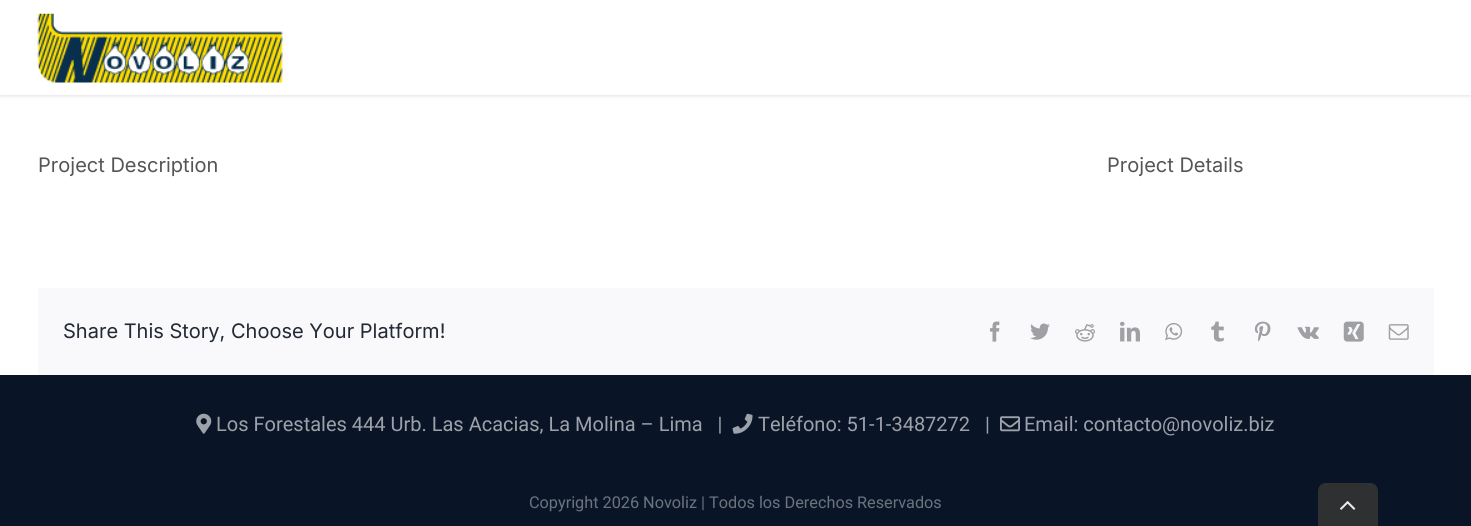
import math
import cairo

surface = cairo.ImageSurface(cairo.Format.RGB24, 1471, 526)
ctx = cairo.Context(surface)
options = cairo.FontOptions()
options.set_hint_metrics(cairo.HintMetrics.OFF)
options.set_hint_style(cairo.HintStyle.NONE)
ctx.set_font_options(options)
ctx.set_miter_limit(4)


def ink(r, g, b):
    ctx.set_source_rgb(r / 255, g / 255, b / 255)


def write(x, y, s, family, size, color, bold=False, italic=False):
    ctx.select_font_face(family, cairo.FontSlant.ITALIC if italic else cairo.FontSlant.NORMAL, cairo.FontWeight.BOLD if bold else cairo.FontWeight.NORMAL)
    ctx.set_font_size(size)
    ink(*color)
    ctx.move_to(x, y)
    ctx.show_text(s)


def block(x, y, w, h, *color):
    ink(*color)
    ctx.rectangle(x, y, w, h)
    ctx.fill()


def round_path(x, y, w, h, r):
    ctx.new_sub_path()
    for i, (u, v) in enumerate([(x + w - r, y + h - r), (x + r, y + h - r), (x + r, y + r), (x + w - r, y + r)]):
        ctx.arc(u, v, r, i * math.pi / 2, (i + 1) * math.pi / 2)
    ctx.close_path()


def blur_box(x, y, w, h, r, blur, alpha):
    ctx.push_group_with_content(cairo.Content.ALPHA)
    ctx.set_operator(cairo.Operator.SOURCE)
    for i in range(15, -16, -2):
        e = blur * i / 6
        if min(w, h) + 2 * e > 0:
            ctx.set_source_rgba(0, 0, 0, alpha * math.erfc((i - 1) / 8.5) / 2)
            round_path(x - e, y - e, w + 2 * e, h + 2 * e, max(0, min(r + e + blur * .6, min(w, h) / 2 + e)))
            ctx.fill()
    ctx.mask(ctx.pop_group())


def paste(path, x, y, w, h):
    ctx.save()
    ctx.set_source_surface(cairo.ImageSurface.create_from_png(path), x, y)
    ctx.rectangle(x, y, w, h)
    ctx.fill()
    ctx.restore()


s1 = dict(family="Inter", size=20, color=(85, 85, 85))
s2 = dict(family="Inter", size=20, color=(33, 41, 52))
s3 = dict(family="Roboto", size=20, color=(157, 161, 169))
s4 = dict(family="Roboto", size=16.25, color=(107, 115, 125))

ink(255, 255, 255)
ctx.paint()
ink(0, 0, 0)
blur_box(0, 1, 1471, 95, 0, 2, 0.12)
block(0, 0, 1471, 95, 255, 255, 255)
paste("pic1.png", 37, 13, 246, 70)
write(38, 172, "Project Description", **s1)
write(1107, 172, "Project Details", **s1)
block(38, 288, 1396, 87, 249, 249, 251)
write(63, 338, "Share This Story, Choose Your Platform!", **s2)
paste("pic2.png", 990, 321, 10, 21)
paste("pic3.png", 1030, 323, 20, 17)
paste("pic4.png", 1075, 324, 20, 18)
paste("pic5.png", 1120, 321, 20, 21)
paste("pic6.png", 1165, 323, 18, 18)
paste("pic7.png", 1211, 321, 13, 21)
paste("pic8.png", 1254, 321, 17, 21)
paste("pic9.png", 1297, 326, 22, 13)
paste("pic10.png", 1343, 321, 21, 21)
paste("pic11.png", 1388, 324, 21, 16)
block(0, 375, 1471, 151, 9, 21, 39)
paste("pic12.png", 196, 413, 16, 21)
write(216, 431, "Los Forestales 444 Urb. Las Acacias, La Molina – Lima   |", **s3)
paste("pic13.png", 732, 413, 21, 21)
write(758, 431, "Teléfono: 51-1-3487272   |", **s3)
paste("pic14.png", 1000, 416, 20, 16)
write(1024, 431, "Email: contacto@novoliz.biz", **s3)
write(529, 508, "Copyright 2026 Novoliz | Todos los Derechos Reservados", **s4)
ink(47, 48, 50)
ctx.new_path()
ctx.move_to(1326, 483)
ctx.line_to(1370, 483)
ctx.curve_to(1374.5, 483, 1378, 486.5, 1378, 491)
ctx.line_to(1378, 526)
ctx.line_to(1318, 526)
ctx.line_to(1318, 491)
ctx.curve_to(1318, 486.5, 1321.5, 483, 1326, 483)
ctx.close_path()
ctx.fill()
paste("pic15.png", 1340, 501, 16, 9)
surface.write_to_png("screenshot.png")
